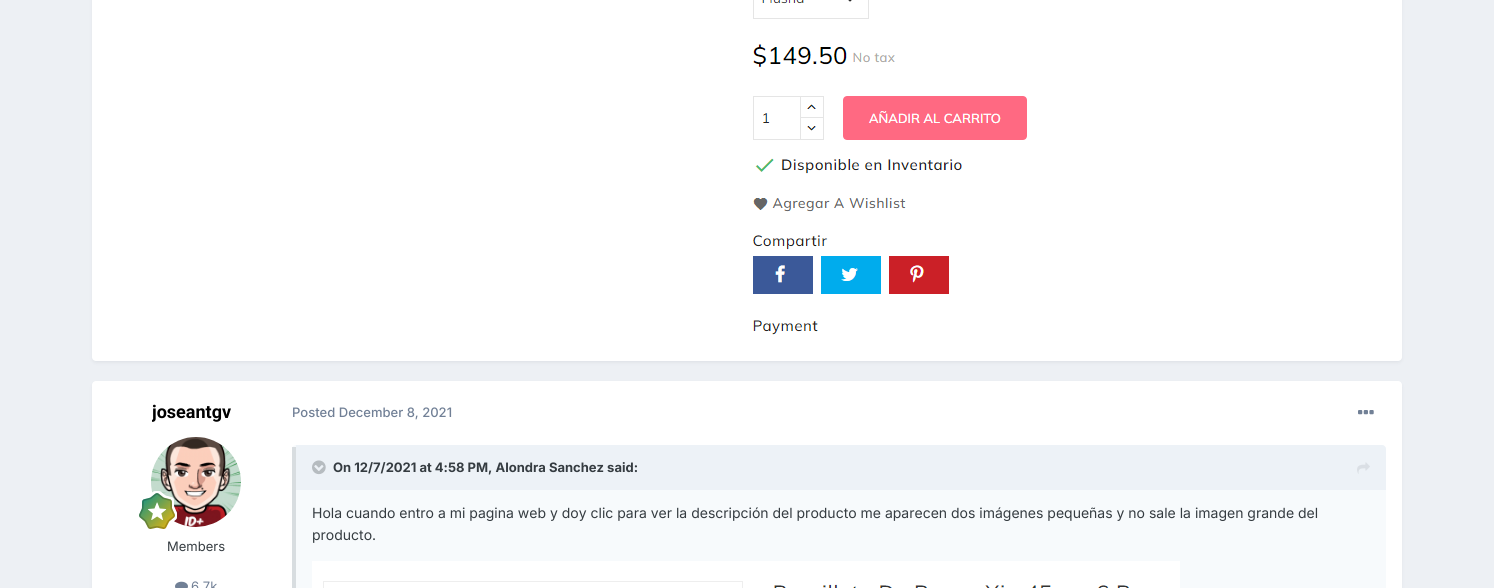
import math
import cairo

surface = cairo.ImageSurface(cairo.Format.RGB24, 1494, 588)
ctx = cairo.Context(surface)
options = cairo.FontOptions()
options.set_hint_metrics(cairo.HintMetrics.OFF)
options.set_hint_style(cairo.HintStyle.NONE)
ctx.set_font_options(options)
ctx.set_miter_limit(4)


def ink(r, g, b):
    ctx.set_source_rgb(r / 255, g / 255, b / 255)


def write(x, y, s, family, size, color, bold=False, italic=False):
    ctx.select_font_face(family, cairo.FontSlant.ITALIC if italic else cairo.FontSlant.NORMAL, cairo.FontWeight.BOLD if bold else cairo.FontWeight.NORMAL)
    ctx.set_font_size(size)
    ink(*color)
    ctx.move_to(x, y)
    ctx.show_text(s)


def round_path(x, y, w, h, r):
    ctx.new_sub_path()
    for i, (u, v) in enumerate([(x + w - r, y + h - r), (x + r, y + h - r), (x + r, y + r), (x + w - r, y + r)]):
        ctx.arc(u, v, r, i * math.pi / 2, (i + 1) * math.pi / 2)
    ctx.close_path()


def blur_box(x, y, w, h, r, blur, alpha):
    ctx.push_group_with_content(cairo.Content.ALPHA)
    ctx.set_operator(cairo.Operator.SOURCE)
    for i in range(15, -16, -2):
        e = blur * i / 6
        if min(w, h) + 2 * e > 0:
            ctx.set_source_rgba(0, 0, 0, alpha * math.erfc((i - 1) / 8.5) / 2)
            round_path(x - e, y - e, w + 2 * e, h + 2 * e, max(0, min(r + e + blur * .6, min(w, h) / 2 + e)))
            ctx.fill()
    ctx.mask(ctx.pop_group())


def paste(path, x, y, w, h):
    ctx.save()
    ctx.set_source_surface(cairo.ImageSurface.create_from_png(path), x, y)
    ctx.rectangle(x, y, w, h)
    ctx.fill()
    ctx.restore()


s1 = dict(family="Roboto", size=18, color=(0, 0, 0), bold=True)
s2 = dict(family="Inter", size=13, color=(53, 60, 65))
s3 = dict(family="Inter", size=13, color=(113, 128, 150))
s4 = dict(family="Inter Medium", size=13, color=(113, 128, 150))
s5 = dict(family="Inter", size=13, color=(53, 60, 65), bold=True)
s6 = dict(family="Inter", size=14, color=(53, 60, 65))

ink(237, 240, 244)
ctx.paint()
ink(45, 55, 72)
blur_box(93, -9, 1308, 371, 3, 2, 0.1)
ink(255, 255, 255)
round_path(92, -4, 1310, 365, 4)
ctx.fill()
paste("pic1.png", 753, 0, 274, 335)
ink(45, 55, 72)
blur_box(93, 384, 1308, 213, 3, 2, 0.1)
ink(255, 255, 255)
round_path(92, 381, 1310, 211, 4)
ctx.fill()
ctx.save()
ctx.rectangle(152, 401, 80, 22)
ctx.clip()
write(152, 418, "joseantgv", **s1)
ctx.restore()
paste("pic2.png", 151, 437, 90, 90)
paste("pic3.png", 139, 491, 38, 38)
write(167, 551, "Members", **s2)
paste("pic4.png", 175, 581, 13, 7)
write(191, 591, "6.7k", **s3)
write(292, 417, "Posted December 8, 2021", **s4)
paste("pic5.png", 1358, 410, 16, 5)
ink(247, 250, 252)
round_path(292, 445, 1094, 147, 4)
ctx.fill()
ctx.set_source_rgba(0.176, 0.216, 0.282, 0.15)
ctx.rectangle(292, 447, 4, 141)
ctx.fill()
ink(237, 242, 247)
ctx.new_path()
ctx.move_to(296, 445)
ctx.line_to(1382, 445)
ctx.curve_to(1384, 445, 1386, 447, 1386, 449)
ctx.line_to(1386, 490)
ctx.line_to(296, 490)
ctx.close_path()
ctx.fill()
paste("pic6.png", 312, 460, 14, 15)
write(333, 472, "On 12/7/2021 at 4:58 PM, Alondra Sanchez said:", **s5)
paste("pic7.png", 1357, 462, 13, 12)
write(312, 518, "Hola cuando entro a mi pagina web y doy clic para ver la descripción del producto me aparecen dos imágenes pequeñas y no sale la imagen grande del", **s6)
write(312, 540, "producto.", **s6)
paste("pic8.png", 312, 561, 868, 27)
surface.write_to_png("screenshot.png")
